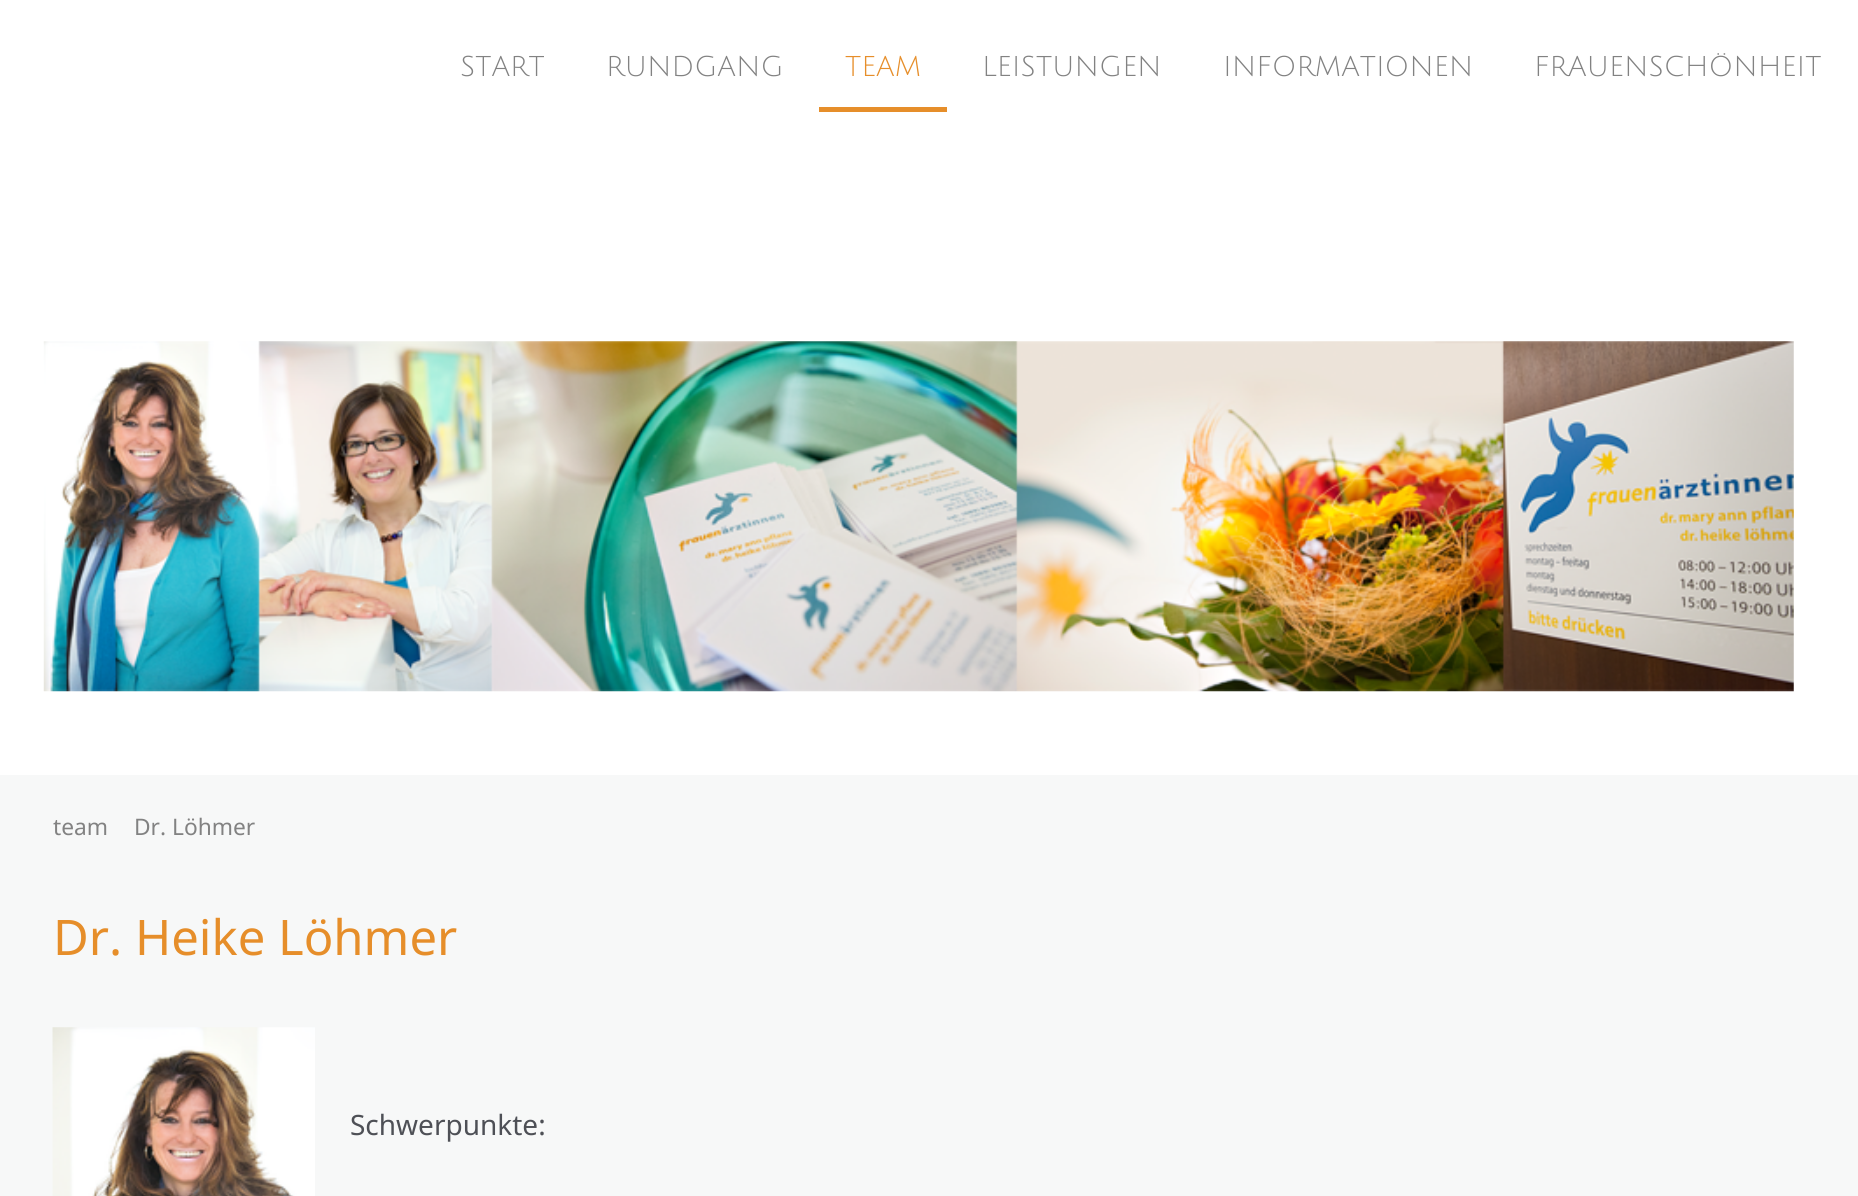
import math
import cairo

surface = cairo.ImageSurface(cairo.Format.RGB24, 1858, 1196)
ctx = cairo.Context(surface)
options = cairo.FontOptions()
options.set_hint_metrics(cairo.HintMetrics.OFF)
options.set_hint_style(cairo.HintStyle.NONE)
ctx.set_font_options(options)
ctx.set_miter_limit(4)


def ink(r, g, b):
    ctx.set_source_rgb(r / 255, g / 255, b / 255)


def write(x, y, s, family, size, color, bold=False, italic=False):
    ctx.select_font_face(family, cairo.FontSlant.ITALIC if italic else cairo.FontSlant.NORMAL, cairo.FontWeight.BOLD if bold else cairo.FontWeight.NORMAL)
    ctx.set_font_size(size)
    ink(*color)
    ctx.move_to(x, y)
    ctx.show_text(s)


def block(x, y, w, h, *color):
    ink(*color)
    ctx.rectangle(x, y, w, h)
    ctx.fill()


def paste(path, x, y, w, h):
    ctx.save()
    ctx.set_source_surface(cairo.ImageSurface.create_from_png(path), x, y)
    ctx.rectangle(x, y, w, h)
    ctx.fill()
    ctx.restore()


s1 = dict(family="Julius Sans One", size=28, color=(130, 130, 130))
s2 = dict(family="Julius Sans One", size=28, color=(230, 142, 42))
s3 = dict(family="Noto Sans", size=22.75, color=(130, 130, 130))
s4 = dict(family="Noto Sans", size=49, color=(230, 142, 42))
s5 = dict(family="Noto Sans", size=28, color=(78, 80, 86))

ink(255, 255, 255)
ctx.paint()
write(460, 76, "START", **s1)
write(606, 76, "RUNDGANG", **s1)
block(819, 107, 128, 5, 230, 142, 42)
write(845, 76, "TEAM", **s2)
write(982, 76, "LEISTUNGEN", **s1)
write(1223, 76, "INFORMATIONEN", **s1)
write(1534, 76, "FRAUENSCHÖNHEIT", **s1)
paste("pic1.png", 43, 341, 1751, 351)
block(0, 775, 1858, 421, 247, 248, 248)
write(53, 835, "team", **s3)
write(134, 835, "Dr. Löhmer", **s3)
write(53, 955, "Dr. Heike Löhmer", **s4)
paste("pic2.png", 52, 1027, 263, 169)
write(350, 1135, "Schwerpunkte:", **s5)
surface.write_to_png("screenshot.png")
